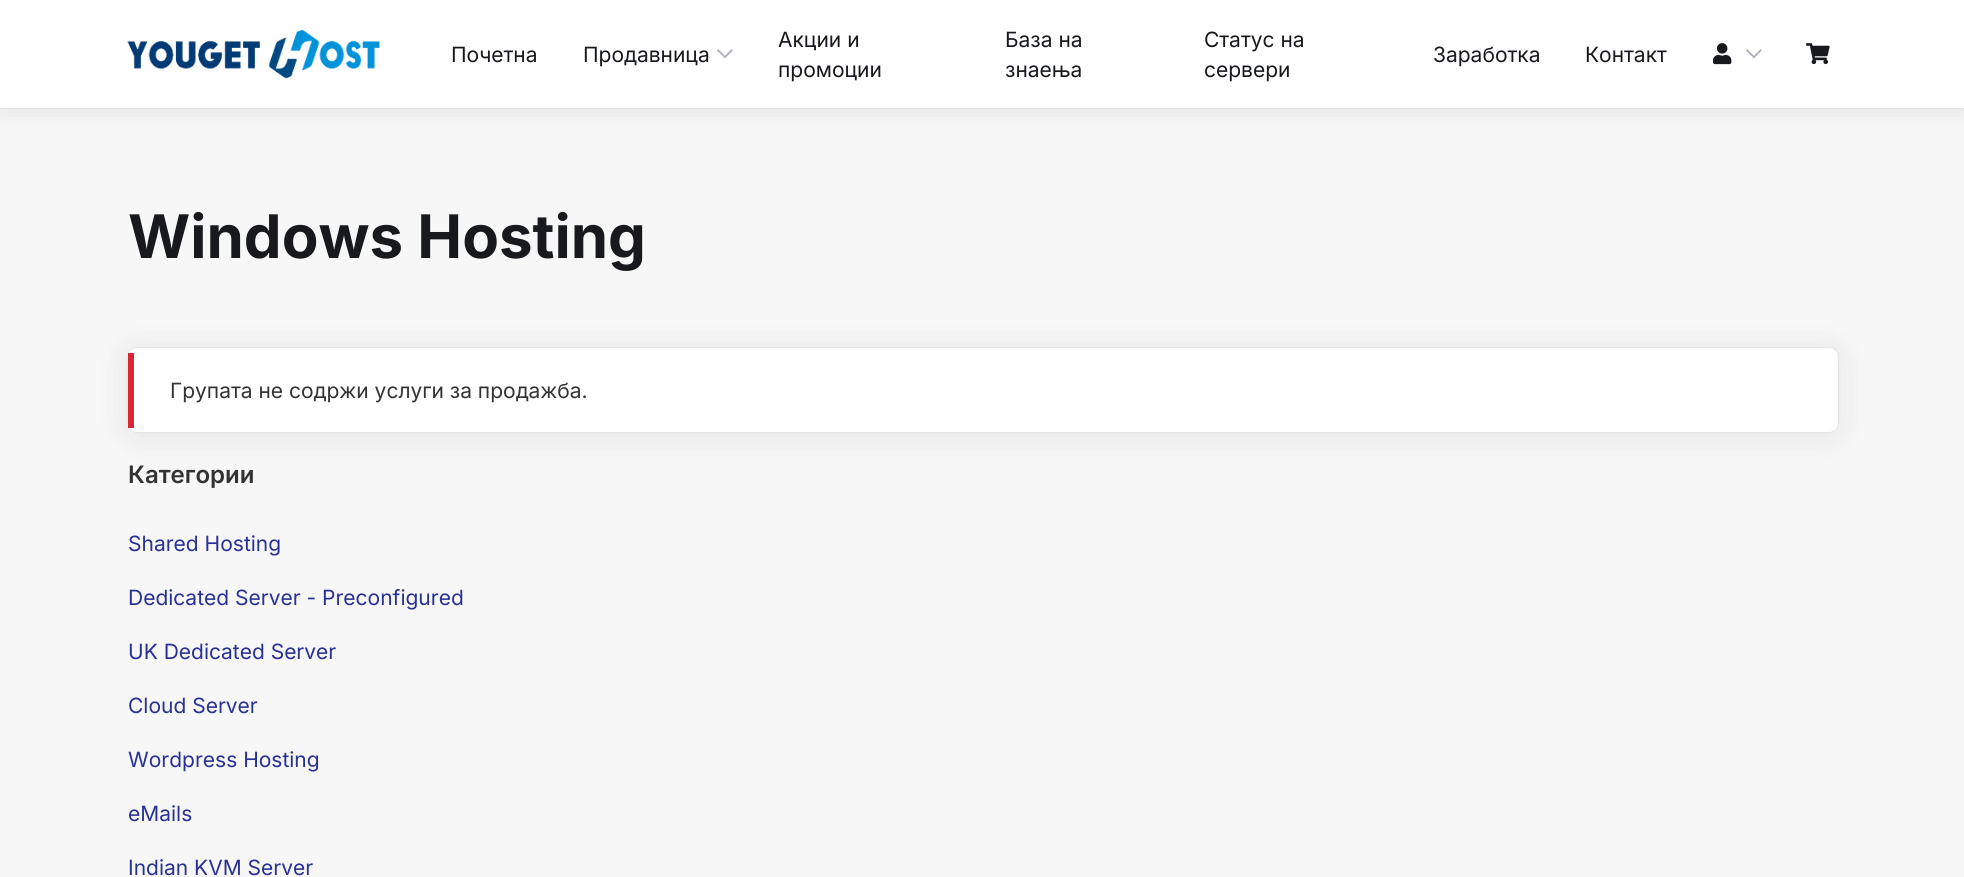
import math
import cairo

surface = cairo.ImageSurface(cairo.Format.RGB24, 1964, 877)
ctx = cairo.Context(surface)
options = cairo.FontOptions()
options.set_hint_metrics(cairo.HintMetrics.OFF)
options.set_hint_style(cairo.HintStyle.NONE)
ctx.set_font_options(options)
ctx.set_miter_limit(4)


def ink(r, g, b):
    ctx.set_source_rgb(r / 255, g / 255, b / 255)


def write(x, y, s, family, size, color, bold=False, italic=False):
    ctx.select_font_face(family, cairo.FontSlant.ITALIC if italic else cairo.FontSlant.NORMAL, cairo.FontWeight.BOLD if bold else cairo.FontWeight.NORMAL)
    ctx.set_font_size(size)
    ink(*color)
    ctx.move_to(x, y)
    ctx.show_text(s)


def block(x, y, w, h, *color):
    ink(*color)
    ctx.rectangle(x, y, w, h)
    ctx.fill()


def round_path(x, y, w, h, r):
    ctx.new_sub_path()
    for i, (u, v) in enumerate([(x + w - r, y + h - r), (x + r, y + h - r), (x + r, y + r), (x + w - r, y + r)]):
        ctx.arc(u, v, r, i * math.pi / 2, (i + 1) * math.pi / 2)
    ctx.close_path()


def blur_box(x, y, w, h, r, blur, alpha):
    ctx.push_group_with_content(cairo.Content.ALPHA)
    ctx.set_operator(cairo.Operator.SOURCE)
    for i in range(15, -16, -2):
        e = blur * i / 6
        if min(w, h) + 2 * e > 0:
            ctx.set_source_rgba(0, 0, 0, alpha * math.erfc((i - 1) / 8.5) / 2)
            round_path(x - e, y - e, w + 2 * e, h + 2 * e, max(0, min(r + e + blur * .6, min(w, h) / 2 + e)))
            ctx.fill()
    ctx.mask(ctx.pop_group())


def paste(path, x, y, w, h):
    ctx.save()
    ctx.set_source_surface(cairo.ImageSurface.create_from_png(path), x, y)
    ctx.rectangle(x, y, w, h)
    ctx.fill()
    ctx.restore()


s1 = dict(family="Inter", size=21, color=(23, 25, 28))
s2 = dict(family="Inter", size=60, color=(23, 25, 28), bold=True)
s3 = dict(family="Inter", size=21, color=(51, 51, 51))
s4 = dict(family="Inter SemiBold", size=24, color=(51, 51, 51))
s5 = dict(family="Inter", size=21, color=(40, 49, 148))

ink(247, 247, 248)
ctx.paint()
ink(0, 0, 0)
blur_box(0, 3, 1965, 108, 0, 12, 0.08)
blur_box(0, 0, 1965, 108, 0, 1, 0.1)
block(0, 0, 1964, 108, 255, 255, 255)
paste("pic1.png", 127, 29, 253, 50)
write(451, 62, "Почетна", **s1)
write(583, 62, "Продавница", **s1)
paste("pic2.png", 717, 49, 16, 10)
write(778, 47, "Акции и", **s1)
write(778, 77, "промоции", **s1)
write(1005, 47, "База на", **s1)
write(1005, 77, "знаења", **s1)
write(1204, 47, "Статус на", **s1)
write(1204, 77, "сервери", **s1)
write(1433, 62, "Заработка", **s1)
write(1585, 62, "Контакт", **s1)
paste("pic3.png", 1713, 43, 19, 22)
paste("pic2.png", 1746, 49, 16, 10)
paste("pic4.png", 1806, 43, 24, 22)
write(128, 258, "Windows Hosting", **s2)
ink(0, 0, 0)
blur_box(128, 351, 1710, 84, 9, 18, 0.08)
blur_box(128, 348, 1710, 84, 9, 1, 0.1)
ink(255, 255, 255)
round_path(128, 348, 1710, 84, 9)
ctx.fill()
block(128, 353, 6, 75, 217, 38, 50)
write(170, 398, "Групата не содржи услуги за продажба.", **s3)
write(128, 483, "Категории", **s4)
write(128, 551, "Shared Hosting", **s5)
write(128, 605, "Dedicated Server - Preconfigured", **s5)
write(128, 659, "UK Dedicated Server", **s5)
write(128, 713, "Cloud Server", **s5)
write(128, 767, "Wordpress Hosting", **s5)
write(128, 821, "eMails", **s5)
write(128, 875, "Indian KVM Server", **s5)
surface.write_to_png("screenshot.png")
